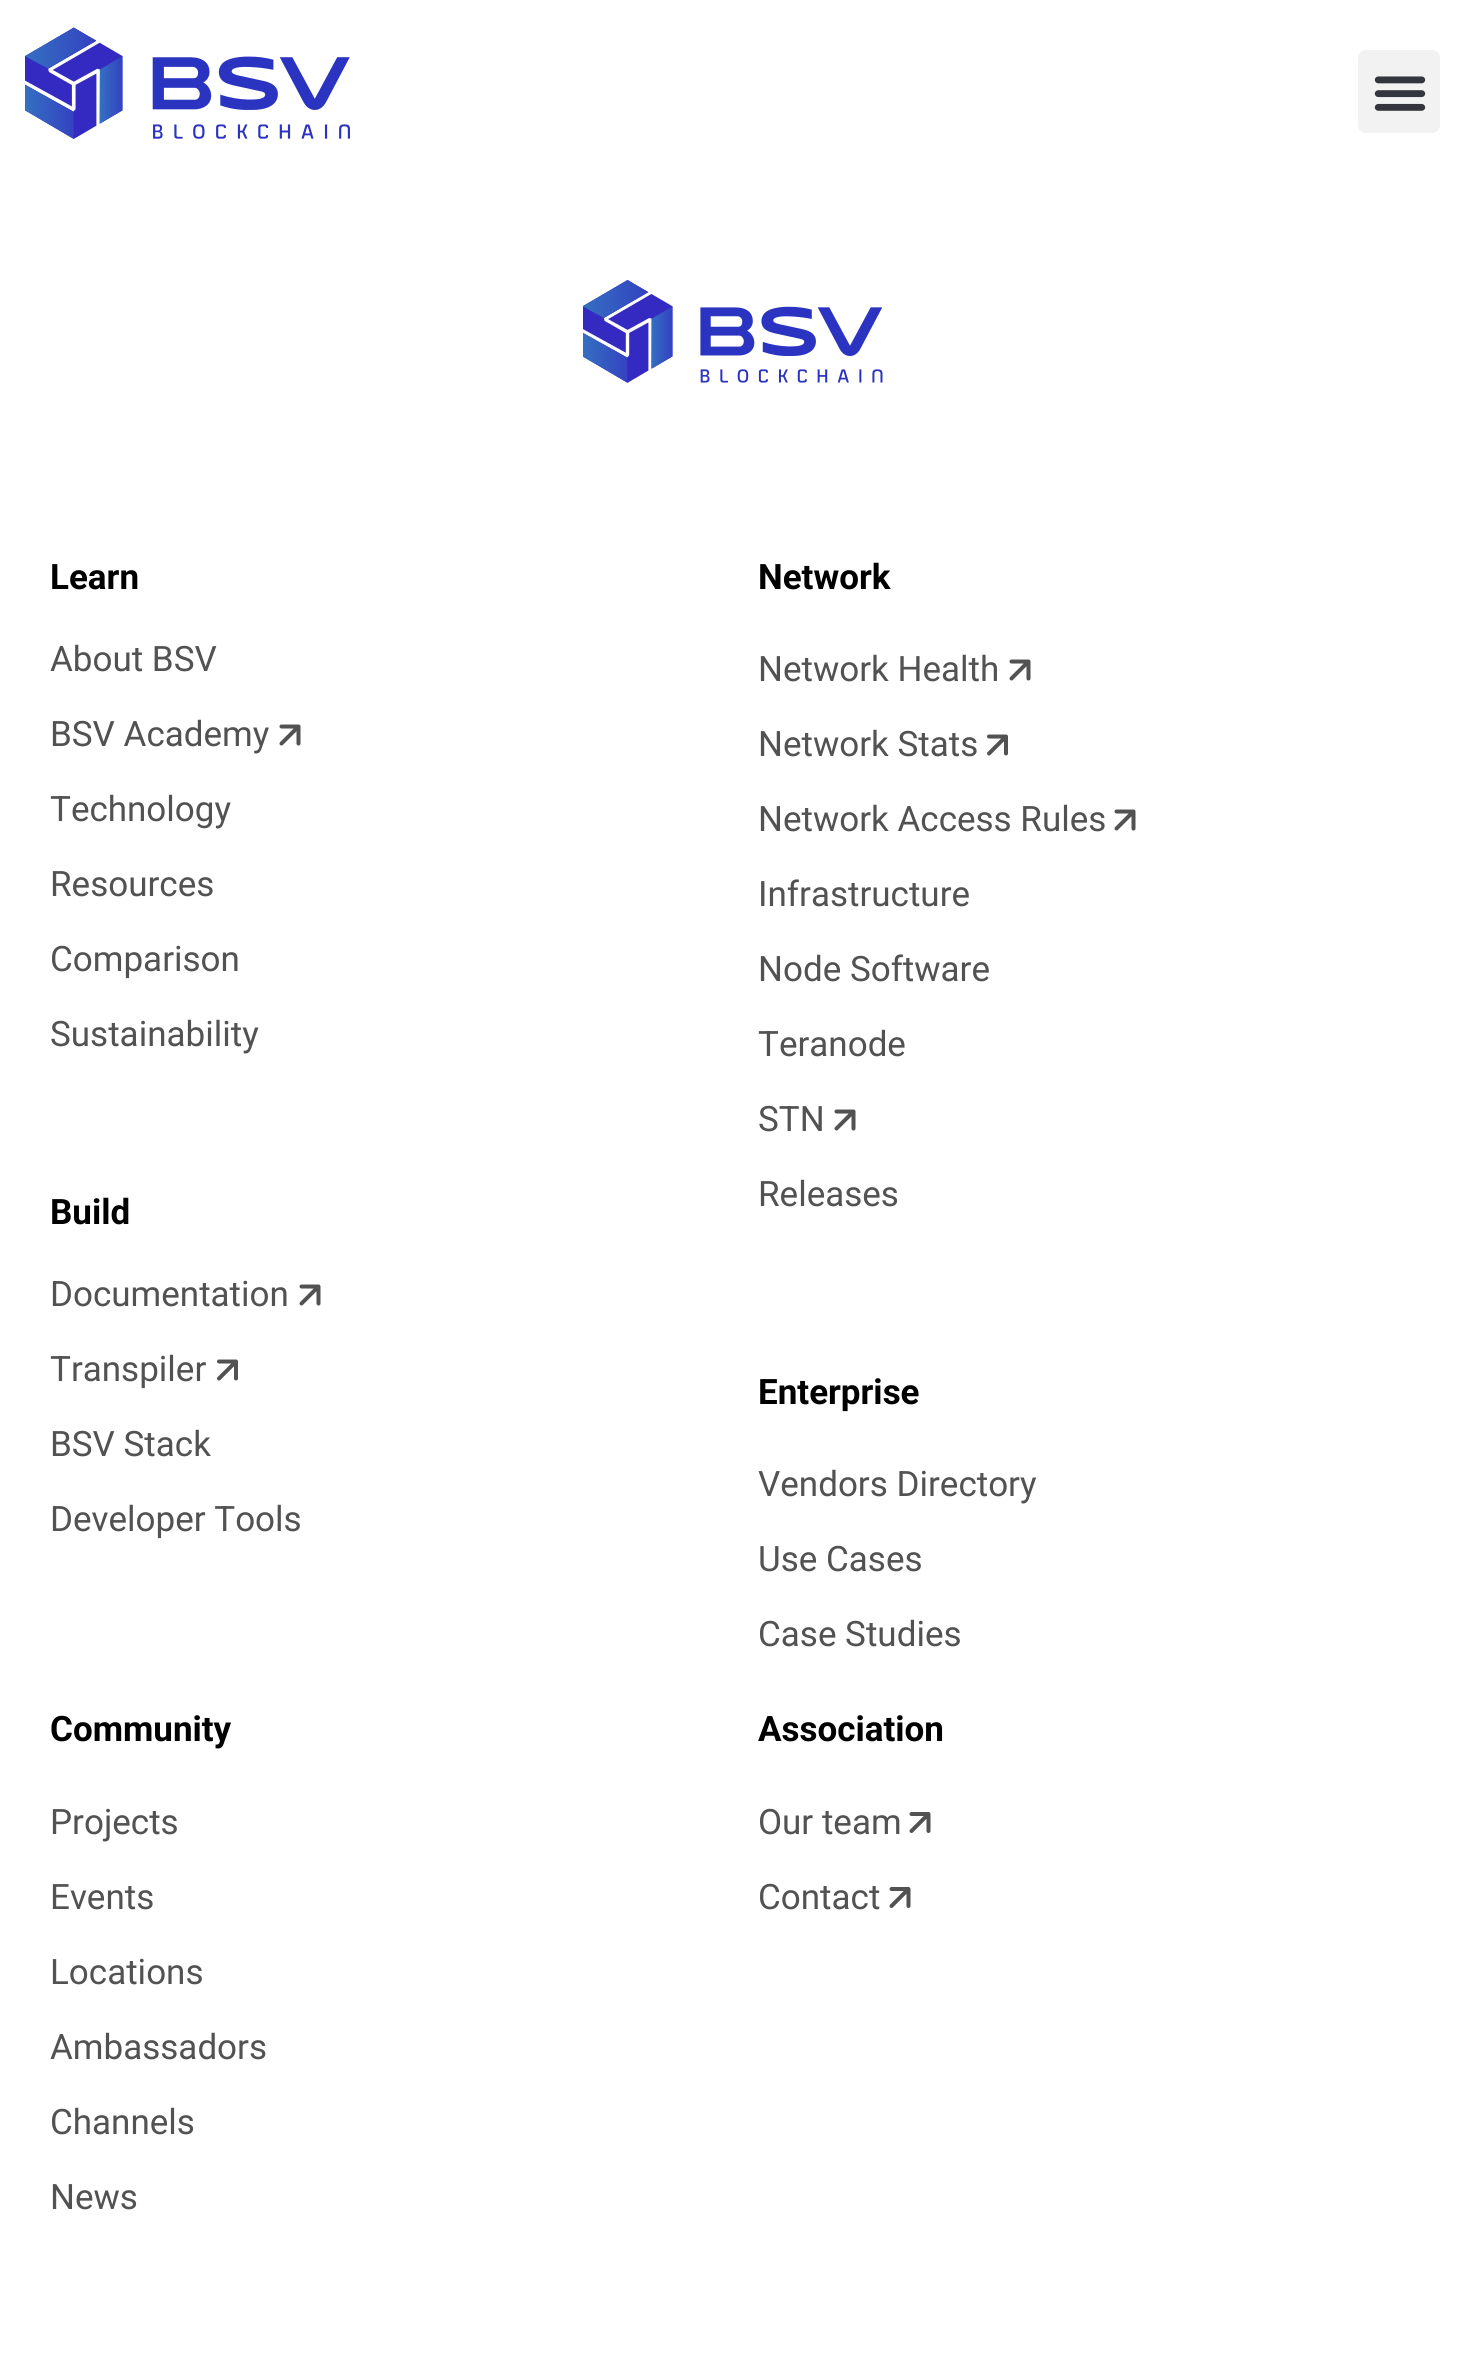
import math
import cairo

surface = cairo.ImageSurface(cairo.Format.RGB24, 1463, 2361)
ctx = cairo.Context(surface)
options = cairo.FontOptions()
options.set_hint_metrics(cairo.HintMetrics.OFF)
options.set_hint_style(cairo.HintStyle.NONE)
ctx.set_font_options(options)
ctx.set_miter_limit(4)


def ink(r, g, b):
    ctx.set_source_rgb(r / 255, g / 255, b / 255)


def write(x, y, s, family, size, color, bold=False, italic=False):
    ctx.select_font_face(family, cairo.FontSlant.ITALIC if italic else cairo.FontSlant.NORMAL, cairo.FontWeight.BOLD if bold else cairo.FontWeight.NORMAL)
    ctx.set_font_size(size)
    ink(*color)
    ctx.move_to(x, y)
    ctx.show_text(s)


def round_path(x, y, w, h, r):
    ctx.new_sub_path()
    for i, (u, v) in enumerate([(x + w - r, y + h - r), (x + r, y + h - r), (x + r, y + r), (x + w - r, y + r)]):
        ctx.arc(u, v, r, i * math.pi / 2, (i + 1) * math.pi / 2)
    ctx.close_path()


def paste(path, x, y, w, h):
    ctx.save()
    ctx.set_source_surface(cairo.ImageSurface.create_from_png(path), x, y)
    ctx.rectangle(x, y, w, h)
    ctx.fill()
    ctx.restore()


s1 = dict(family="Roboto", size=35, color=(0, 0, 0), bold=True)
s2 = dict(family="Roboto", size=35, color=(82, 82, 82))

ink(255, 255, 255)
ctx.paint()
paste("pic1.png", 25, 27, 325, 112)
ink(242, 242, 242)
round_path(1358, 50, 82, 83, 8)
ctx.fill()
paste("pic2.png", 1374, 76, 52, 35)
paste("pic3.png", 583, 280, 300, 103)
write(50, 589, "Learn", **s1)
write(50, 671, "About BSV", **s2)
write(50, 746, "BSV Academy", **s2)
ctx.new_path()
ctx.move_to(281.5, 743.5)
ctx.line_to(298.5, 726.5)
ctx.move_to(298.5, 726.5)
ctx.line_to(281.5, 726.5)
ctx.move_to(298.5, 726.5)
ctx.line_to(298.5, 743.5)
ctx.set_line_width(4)
ctx.set_line_cap(cairo.LineCap.ROUND)
ctx.set_line_join(cairo.LineJoin.ROUND)
ctx.stroke()
write(50, 821, "Technology", **s2)
write(50, 896, "Resources", **s2)
write(50, 971, "Comparison", **s2)
write(50, 1046, "Sustainability", **s2)
write(50, 1224, "Build", **s1)
write(50, 1306, "Documentation", **s2)
ctx.new_path()
ctx.move_to(301.5, 1303.5)
ctx.line_to(318.5, 1286.5)
ctx.move_to(318.5, 1286.5)
ctx.line_to(301.5, 1286.5)
ctx.move_to(318.5, 1286.5)
ctx.line_to(318.5, 1303.5)
ctx.stroke()
write(50, 1381, "Transpiler", **s2)
ctx.new_path()
ctx.move_to(219, 1378.5)
ctx.line_to(236, 1361.5)
ctx.move_to(236, 1361.5)
ctx.line_to(219, 1361.5)
ctx.move_to(236, 1361.5)
ctx.line_to(236, 1378.5)
ctx.stroke()
write(50, 1456, "BSV Stack", **s2)
write(50, 1531, "Developer Tools", **s2)
write(758, 589, "Network", **s1)
write(758, 681, "Network Health", **s2)
ctx.new_path()
ctx.move_to(1011.5, 678.5)
ctx.line_to(1028.5, 661.5)
ctx.move_to(1028.5, 661.5)
ctx.line_to(1011.5, 661.5)
ctx.move_to(1028.5, 661.5)
ctx.line_to(1028.5, 678.5)
ctx.stroke()
write(758, 756, "Network Stats", **s2)
ctx.new_path()
ctx.move_to(989, 753.5)
ctx.line_to(1006, 736.5)
ctx.move_to(1006, 736.5)
ctx.line_to(989, 736.5)
ctx.move_to(1006, 736.5)
ctx.line_to(1006, 753.5)
ctx.stroke()
write(758, 831, "Network Access Rules", **s2)
ctx.new_path()
ctx.move_to(1116.5, 828.5)
ctx.line_to(1133.5, 811.5)
ctx.move_to(1133.5, 811.5)
ctx.line_to(1116.5, 811.5)
ctx.move_to(1133.5, 811.5)
ctx.line_to(1133.5, 828.5)
ctx.stroke()
write(758, 906, "Infrastructure", **s2)
write(758, 981, "Node Software", **s2)
write(758, 1056, "Teranode", **s2)
write(758, 1131, "STN", **s2)
ctx.new_path()
ctx.move_to(836.5, 1128.5)
ctx.line_to(853.5, 1111.5)
ctx.move_to(853.5, 1111.5)
ctx.line_to(836.5, 1111.5)
ctx.move_to(853.5, 1111.5)
ctx.line_to(853.5, 1128.5)
ctx.stroke()
write(758, 1206, "Releases", **s2)
write(758, 1404, "Enterprise", **s1)
write(758, 1496, "Vendors Directory", **s2)
write(758, 1571, "Use Cases", **s2)
write(758, 1646, "Case Studies", **s2)
write(50, 1741, "Community", **s1)
write(50, 1834, "Projects", **s2)
write(50, 1909, "Events", **s2)
write(50, 1984, "Locations", **s2)
write(50, 2059, "Ambassadors", **s2)
write(50, 2134, "Channels", **s2)
write(50, 2209, "News", **s2)
write(758, 1741, "Association", **s1)
write(758, 1834, "Our team", **s2)
ctx.new_path()
ctx.move_to(911.5, 1831)
ctx.line_to(928.5, 1814)
ctx.move_to(928.5, 1814)
ctx.line_to(911.5, 1814)
ctx.move_to(928.5, 1814)
ctx.line_to(928.5, 1831)
ctx.stroke()
write(758, 1909, "Contact", **s2)
ctx.new_path()
ctx.move_to(891.5, 1906)
ctx.line_to(908.5, 1889)
ctx.move_to(908.5, 1889)
ctx.line_to(891.5, 1889)
ctx.move_to(908.5, 1889)
ctx.line_to(908.5, 1906)
ctx.stroke()
surface.write_to_png("screenshot.png")
